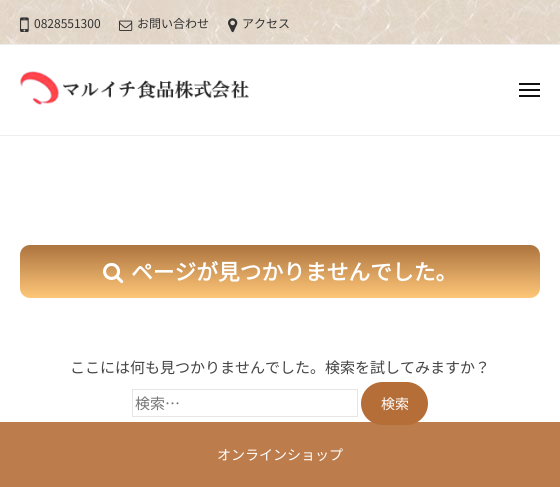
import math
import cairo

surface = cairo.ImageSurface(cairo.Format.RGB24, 560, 487)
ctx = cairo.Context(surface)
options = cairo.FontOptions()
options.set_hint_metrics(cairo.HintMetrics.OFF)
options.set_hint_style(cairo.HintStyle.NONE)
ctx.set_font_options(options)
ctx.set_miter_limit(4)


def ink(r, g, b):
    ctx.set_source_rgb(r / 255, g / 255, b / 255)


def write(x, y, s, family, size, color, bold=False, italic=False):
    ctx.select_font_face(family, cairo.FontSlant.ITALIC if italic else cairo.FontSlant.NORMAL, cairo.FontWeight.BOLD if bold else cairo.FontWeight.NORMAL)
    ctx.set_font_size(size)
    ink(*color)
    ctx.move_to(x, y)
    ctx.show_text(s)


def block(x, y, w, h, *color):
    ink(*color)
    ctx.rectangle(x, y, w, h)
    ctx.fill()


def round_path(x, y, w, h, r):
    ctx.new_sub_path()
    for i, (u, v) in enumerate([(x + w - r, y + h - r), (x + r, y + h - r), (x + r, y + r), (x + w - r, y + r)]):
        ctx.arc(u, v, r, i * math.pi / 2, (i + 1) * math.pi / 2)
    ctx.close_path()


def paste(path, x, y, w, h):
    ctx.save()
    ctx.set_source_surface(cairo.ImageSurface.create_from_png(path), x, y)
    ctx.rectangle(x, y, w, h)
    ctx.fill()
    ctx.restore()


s1 = dict(family="Noto Sans JP Thin", size=12, color=(51, 51, 51))
s2 = dict(family="Noto Sans JP", size=21.75, color=(255, 255, 255), bold=True)
s3 = dict(family="Noto Sans JP Thin", size=15, color=(68, 68, 68))
s4 = dict(family="Noto Sans JP Thin", size=15, color=(117, 117, 117))
s5 = dict(family="Noto Sans JP Thin", size=14, color=(255, 255, 255))

ink(255, 255, 255)
ctx.paint()
block(0, 135, 560, 1, 238, 238, 238)
paste("pic1.png", 0, 0, 560, 44)
block(0, 44, 560, 1, 238, 238, 238)
paste("pic2.png", 20, 17, 9, 15)
write(34, 28, "0828551300", **s1)
paste("pic3.png", 119, 20, 14, 11)
write(137, 28, "お問い合わせ", **s1)
paste("pic4.png", 228, 18, 10, 15)
write(242, 28, "アクセス", **s1)
paste("pic5.png", 20, 71, 229, 34)
block(519, 89, 21, 2, 17, 17, 17)
block(519, 83, 21, 2, 17, 17, 17)
block(519, 95, 21, 2, 17, 17, 17)
gradient = cairo.LinearGradient(280, 245, 280, 298)
gradient.add_color_stop_rgba(0, 0.675, 0.455, 0.247, 1)
gradient.add_color_stop_rgba(1, 1, 0.78, 0.471, 1)
ctx.set_source(gradient)
round_path(20, 245, 520, 53, 10)
ctx.fill()
paste("pic6.png", 103, 262, 21, 22)
write(131, 280, "ページが見つかりませんでした。", **s2)
write(70, 373, "ここには何も見つかりませんでした。検索を試してみますか？", **s3)
ctx.rectangle(132.5, 389.5, 225, 27)
ink(230, 230, 230)
ctx.set_line_width(1)
ctx.stroke()
write(135, 409, "検索…", **s4)
ink(182, 110, 56)
round_path(361, 382, 67, 43, 21.5)
ctx.fill()
write(381, 409, "検索", **s5)
ctx.set_source_rgba(0.714, 0.431, 0.22, 0.9)
ctx.rectangle(0, 422, 560, 65)
ctx.fill()
write(217, 460, "オンラインショップ", **s5)
surface.write_to_png("screenshot.png")
